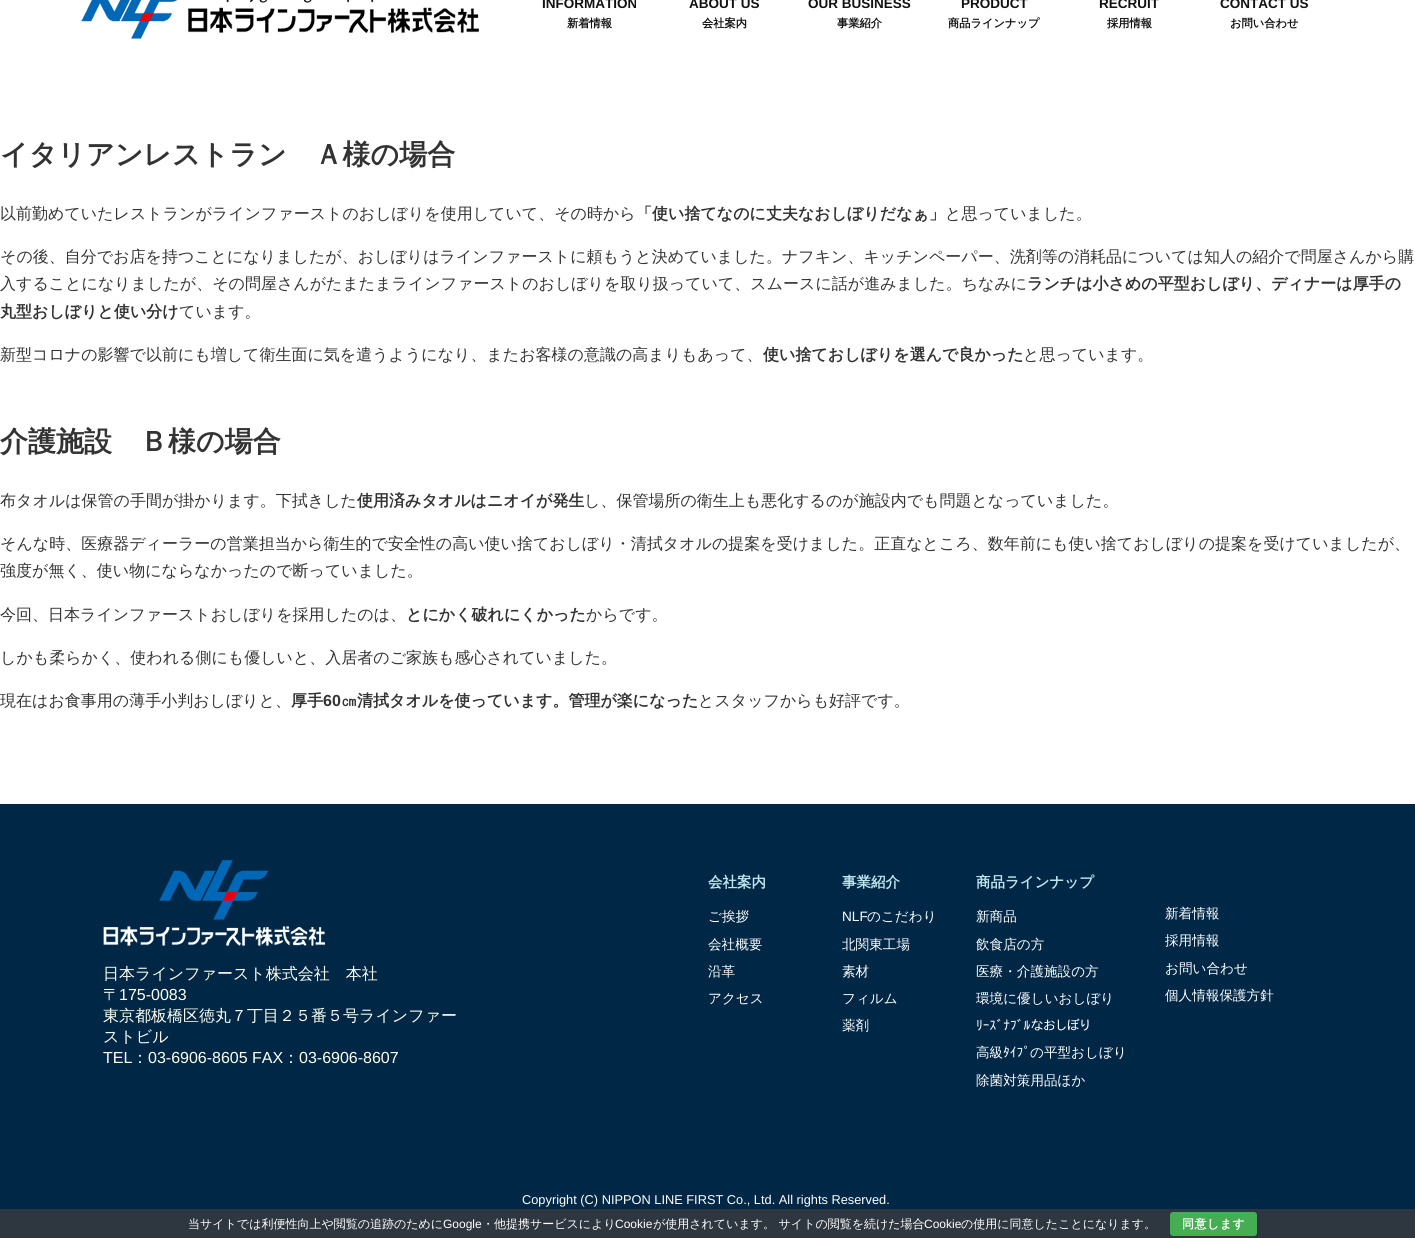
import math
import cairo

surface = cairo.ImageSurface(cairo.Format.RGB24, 1415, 1238)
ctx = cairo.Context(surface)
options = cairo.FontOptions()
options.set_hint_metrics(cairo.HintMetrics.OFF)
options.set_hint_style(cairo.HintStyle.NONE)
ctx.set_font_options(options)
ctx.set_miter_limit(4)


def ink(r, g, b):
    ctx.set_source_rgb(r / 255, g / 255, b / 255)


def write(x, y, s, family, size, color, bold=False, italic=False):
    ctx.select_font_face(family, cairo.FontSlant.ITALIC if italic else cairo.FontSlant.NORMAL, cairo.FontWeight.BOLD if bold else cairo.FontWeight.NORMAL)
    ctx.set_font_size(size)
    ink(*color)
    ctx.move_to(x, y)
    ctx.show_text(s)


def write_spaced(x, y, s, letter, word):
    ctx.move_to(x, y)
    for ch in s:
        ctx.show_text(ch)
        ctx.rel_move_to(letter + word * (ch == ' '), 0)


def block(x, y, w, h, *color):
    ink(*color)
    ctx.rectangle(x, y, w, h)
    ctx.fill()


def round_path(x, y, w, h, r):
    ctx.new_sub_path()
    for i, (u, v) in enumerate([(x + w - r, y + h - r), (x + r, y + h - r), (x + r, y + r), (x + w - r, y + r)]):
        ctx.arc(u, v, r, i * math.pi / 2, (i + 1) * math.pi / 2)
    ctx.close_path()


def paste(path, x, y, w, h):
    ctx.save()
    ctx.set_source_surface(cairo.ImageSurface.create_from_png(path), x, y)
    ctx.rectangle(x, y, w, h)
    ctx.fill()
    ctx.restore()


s1 = dict(family="Liberation Sans", size=13.5, color=(17, 17, 17), bold=True)
s2 = dict(family="WenQuanYi Zen Hei", size=11.25, color=(17, 17, 17), bold=True)
s3 = dict(family="WenQuanYi Zen Hei", size=28, color=(51, 51, 51), bold=True)
s4 = dict(family="WenQuanYi Zen Hei Medium", size=16, color=(51, 51, 51))
s5 = dict(family="WenQuanYi Zen Hei", size=16, color=(51, 51, 51), bold=True)
s6 = dict(family="Liberation Sans", size=16, color=(51, 51, 51), bold=True)
s7 = dict(family="WenQuanYi Zen Hei Medium", size=16, color=(255, 255, 240))
s8 = dict(family="Liberation Sans", size=16, color=(255, 255, 240))
s9 = dict(family="WenQuanYi Zen Hei", size=14.5, color=(190, 230, 235), bold=True)
s10 = dict(family="WenQuanYi Zen Hei Medium", size=13.6, color=(255, 255, 255))
s11 = dict(family="Liberation Sans", size=13.6, color=(255, 255, 255))
s12 = dict(family="IPAPGothic", size=13.6, color=(255, 255, 255))
s13 = dict(family="Liberation Sans", size=12.8, color=(255, 255, 255))
s14 = dict(family="WenQuanYi Zen Hei Medium", size=12, color=(255, 255, 255))
s15 = dict(family="Liberation Sans", size=12, color=(255, 255, 255))

ink(255, 255, 255)
ctx.paint()
paste("pic1.png", 81, 0, 398, 39)
write(542, 8, "INFORMATION", **s1)
write(567, 27, "新着情報", **s2)
write(689, 8, "ABOUT US", **s1)
write(702, 27, "会社案内", **s2)
write(808, 8, "OUR BUSINESS", **s1)
write(837, 27, "事業紹介", **s2)
write(961, 8, "PRODUCT", **s1)
write(948, 27, "商品ラインナップ", **s2)
write(1099, 8, "RECRUIT", **s1)
write(1107, 27, "採用情報", **s2)
write(1220, 8, "CONTACT US", **s1)
write(1230, 27, "お問い合わせ", **s2)
write(0, 164, "イタリアンレストラン　Ａ様の場合", **s3)
write(0, 219, "以前勤めていたレストランがラインファーストのおしぼりを使用していて、その時から", **s4)
write(636, 219, "「使い捨てなのに丈夫なおしぼりだなぁ」", **s5)
write(945, 219, "と思っていました。", **s4)
write(0, 262, "その後、自分でお店を持つことになりましたが、おしぼりはラインファーストに頼もうと決めていました。ナフキン、キッチンペーパー、洗剤等の消耗品については知人の紹介で問屋さんから購", **s4)
write(0, 289, "入することになりましたが、その問屋さんがたまたまラインファーストのおしぼりを取り扱っていて、スムースに話が進みました。ちなみに", **s4)
write(1027, 289, "ランチは小さめの平型おしぼり、ディナーは厚手の", **s5)
write(0, 317, "丸型おしぼりと使い分け", **s5)
write(179, 317, "ています。", **s4)
write(0, 360, "新型コロナの影響で以前にも増して衛生面に気を遣うようになり、またお客様の意識の高まりもあって、", **s4)
write(763, 360, "使い捨ておしぼりを選んで良かった", **s5)
write(1023, 360, "と思っています。", **s4)
write(0, 451, "介護施設　Ｂ様の場合", **s3)
write(0, 506, "布タオルは保管の手間が掛かります。下拭きした", **s4)
write(357, 506, "使用済みタオルはニオイが発生", **s5)
write(584, 506, "し、保管場所の衛生上も悪化するのが施設内でも問題となっていました。", **s4)
write(0, 549, "そんな時、医療器ディーラーの営業担当から衛生的で安全性の高い使い捨ておしぼり・清拭タオルの提案を受けました。正直なところ、数年前にも使い捨ておしぼりの提案を受けていましたが、", **s4)
write(0, 576, "強度が無く、使い物にならなかったので断っていました。", **s4)
write(0, 620, "今回、日本ラインファーストおしぼりを採用したのは、", **s4)
write(406, 620, "とにかく破れにくかった", **s5)
write(586, 620, "からです。", **s4)
write(0, 663, "しかも柔らかく、使われる側にも優しいと、入居者のご家族も感心されていました。", **s4)
write(0, 706, "現在はお食事用の薄手小判おしぼりと、", **s4)
write(291, 706, "厚手", **s5)
write(323, 706, "60", **s6)
write(341, 706, "㎝清拭タオルを使っています。管理が楽になった", **s5)
write(698, 706, "とスタッフからも好評です。", **s4)
block(0, 804, 1415, 405, 0, 40, 70)
paste("pic2.png", 103, 860, 222, 86)
write(103, 979, "日本ラインファースト株式会社　本社", **s7)
write(103, 1000, "〒", **s7)
write(119, 1000, "175-0083", **s8)
write(103, 1021, "東京都板橋区徳丸７丁目２５番５号ラインファー", **s7)
write(103, 1042, "ストビル", **s7)
write(103, 1063, "TEL", **s8)
write(132, 1063, "：", **s7)
write(148, 1063, "03-6906-8605 FAX", **s8)
write(283, 1063, "：", **s7)
write(299, 1063, "03-6906-8607", **s8)
write(708, 887, "会社案内", **s9)
write(708, 921, "ご挨拶", **s10)
write(708, 949, "会社概要", **s10)
write(708, 976, "沿革", **s10)
write(708, 1003, "アクセス", **s10)
write(842, 887, "事業紹介", **s9)
write(842, 921, "NLF", **s11)
write(867, 921, "のこだわり", **s10)
write(842, 949, "北関東工場", **s10)
write(842, 976, "素材", **s10)
write(842, 1003, "フィルム", **s10)
write(842, 1030, "薬剤", **s10)
write(976, 887, "商品ラインナップ", **s9)
write(976, 921, "新商品", **s10)
write(976, 949, "飲食店の方", **s10)
write(976, 976, "医療・介護施設の方", **s10)
write(976, 1003, "環境に優しいおしぼり", **s10)
write(976, 1030, "ﾘｰｽﾞﾅﾌﾞﾙなおしぼり", **s12)
write(976, 1057, "高級", **s10)
write(1003, 1057, "ﾀｲﾌﾟ", **s12)
write(1030, 1057, "の平型おしぼり", **s10)
write(976, 1085, "除菌対策用品ほか", **s10)
write(1165, 918, "新着情報", **s10)
write(1165, 945, "採用情報", **s10)
write(1165, 973, "お問い合わせ", **s10)
write(1165, 1000, "個人情報保護方針", **s10)
write(522, 1204, "Copyright (C) NIPPON LINE FIRST Co., Ltd. All rights Reserved.", **s13)
block(0, 1209, 1415, 29, 46, 54, 63)
write(188, 1228, "当サイトでは利便性向上や閲覧の追跡のために", **s14)
write(443, 1228, "Google", **s15)
write(482, 1228, "・他提携サービスにより", **s14)
write(615, 1228, "Cookie", **s15)
write(653, 1228, "が使用されています。 サイトの閲覧を続けた場合", **s14)
write(924, 1228, "Cookie", **s15)
write(961, 1228, "の使用に同意したことになります。", **s14)
ink(69, 174, 82)
round_path(1170, 1212, 87, 24, 3)
ctx.fill()
ctx.select_font_face("WenQuanYi Zen Hei", cairo.FontSlant.NORMAL, cairo.FontWeight.BOLD)
ink(255, 255, 255)
write_spaced(1182, 1228, "同意します", 0.5, 0)
surface.write_to_png("screenshot.png")
